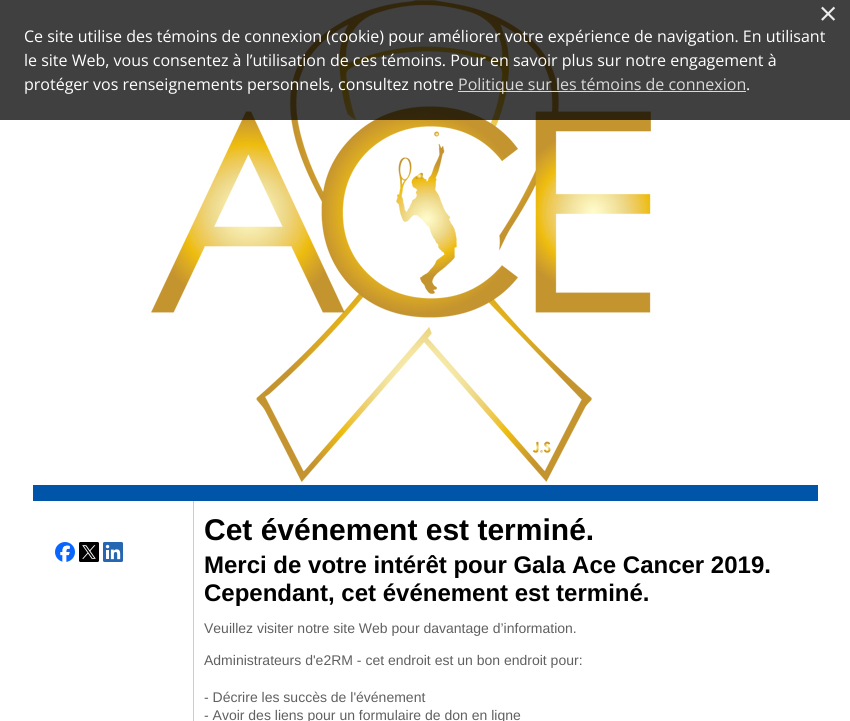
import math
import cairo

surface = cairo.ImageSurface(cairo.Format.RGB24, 850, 721)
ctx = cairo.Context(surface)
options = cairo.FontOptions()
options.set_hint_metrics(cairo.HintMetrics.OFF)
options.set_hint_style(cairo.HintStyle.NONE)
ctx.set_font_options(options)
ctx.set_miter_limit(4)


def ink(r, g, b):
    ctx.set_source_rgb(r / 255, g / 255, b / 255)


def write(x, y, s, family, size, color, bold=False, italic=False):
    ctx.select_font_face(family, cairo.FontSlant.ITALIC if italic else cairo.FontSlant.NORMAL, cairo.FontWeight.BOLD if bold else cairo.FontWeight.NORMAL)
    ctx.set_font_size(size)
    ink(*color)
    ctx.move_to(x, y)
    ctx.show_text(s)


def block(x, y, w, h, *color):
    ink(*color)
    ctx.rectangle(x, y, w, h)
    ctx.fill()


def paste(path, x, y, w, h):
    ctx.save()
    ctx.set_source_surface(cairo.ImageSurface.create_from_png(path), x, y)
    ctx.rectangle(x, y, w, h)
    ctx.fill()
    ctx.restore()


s1 = dict(family="Open Sans", size=32, color=(236, 236, 236))
s2 = dict(family="Open Sans", size=16, color=(255, 255, 255))
s3 = dict(family="Open Sans", size=16, color=(217, 217, 216))
s4 = dict(family="Liberation Sans", size=30, color=(0, 0, 0), bold=True)
s5 = dict(family="Liberation Sans", size=24, color=(0, 0, 0), bold=True)
s6 = dict(family="Liberation Sans", size=14, color=(96, 96, 96))

ink(255, 255, 255)
ctx.paint()
paste("pic1.png", 146, 0, 510, 482)
ctx.set_source_rgba(0, 0, 0, 0.75)
ctx.rectangle(0, 0, 850, 120)
ctx.fill()
write(819, 25, "×", **s1)
write(24, 42, "Ce site utilise des témoins de connexion (cookie) pour améliorer votre expérience de navigation. En utilisant", **s2)
write(24, 66, "le site Web, vous consentez à l’utilisation de ces témoins. Pour en savoir plus sur notre engagement à", **s2)
write(24, 90, "protéger vos renseignements personnels, consultez notre", **s2)
ctx.set_source_rgba(1, 1, 1, 0.8)
ctx.rectangle(458, 91, 288, 1)
ctx.fill()
write(458, 90, "Politique sur les témoins de connexion", **s3)
write(746, 90, ".", **s2)
block(33, 485, 785, 16, 0, 85, 169)
paste("pic2.png", 55, 542, 20, 20)
paste("pic3.png", 79, 542, 20, 20)
paste("pic4.png", 103, 542, 20, 20)
block(193, 501, 1, 220, 204, 204, 204)
write(204, 540, "Cet événement est terminé.", **s4)
write(204, 573, "Merci de votre intérêt pour Gala Ace Cancer 2019.", **s5)
write(204, 601, "Cependant, cet événement est terminé.", **s5)
write(204, 633, "Veuillez visiter notre site Web pour davantage d’information.", **s6)
write(204, 665, "Administrateurs d'e2RM - cet endroit est un bon endroit pour:", **s6)
write(204, 702, "- Décrire les succès de l'événement", **s6)
write(204, 720, "- Avoir des liens pour un formulaire de don en ligne", **s6)
surface.write_to_png("screenshot.png")
